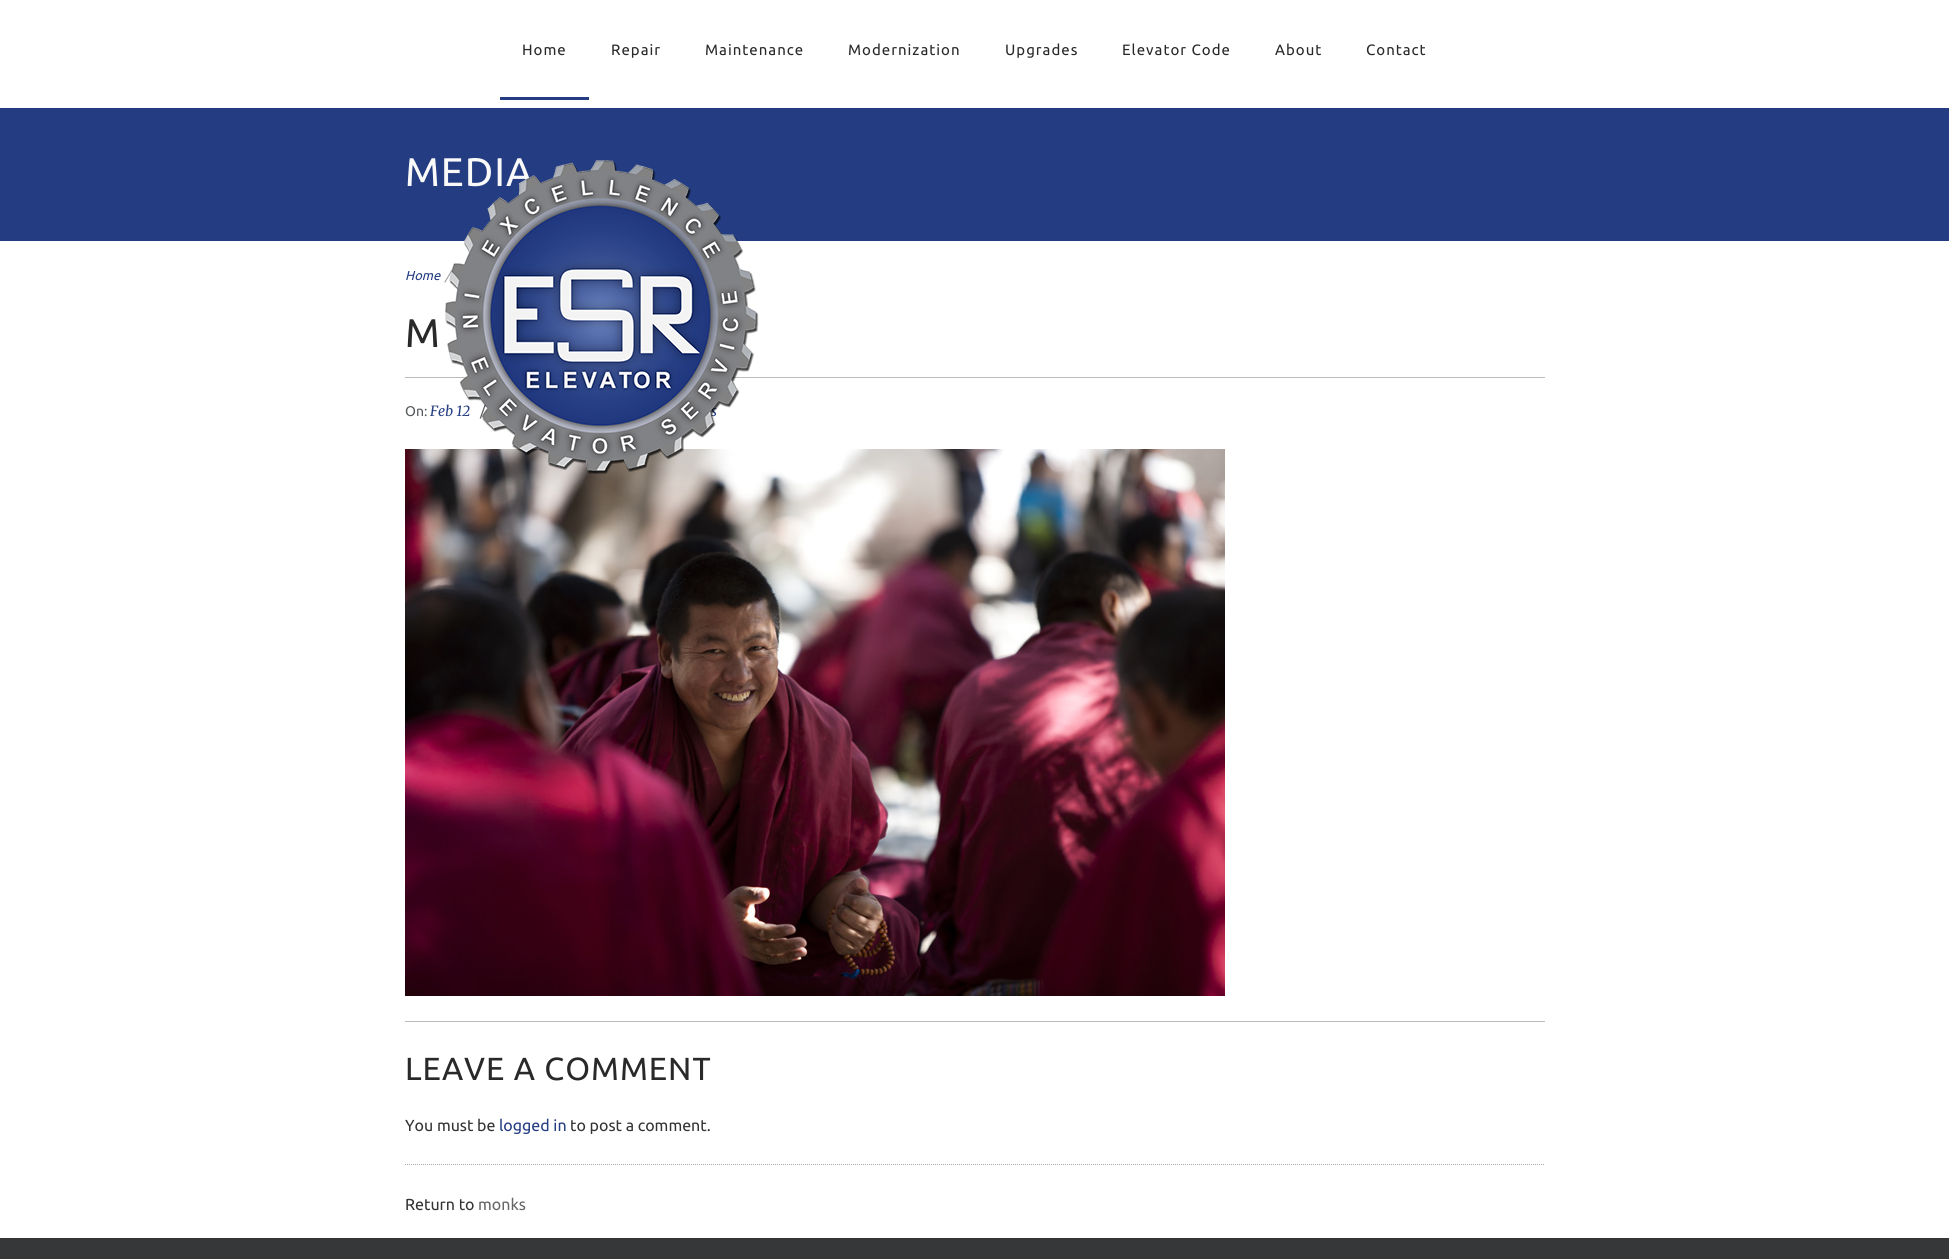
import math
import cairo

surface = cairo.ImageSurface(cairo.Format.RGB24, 1949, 1259)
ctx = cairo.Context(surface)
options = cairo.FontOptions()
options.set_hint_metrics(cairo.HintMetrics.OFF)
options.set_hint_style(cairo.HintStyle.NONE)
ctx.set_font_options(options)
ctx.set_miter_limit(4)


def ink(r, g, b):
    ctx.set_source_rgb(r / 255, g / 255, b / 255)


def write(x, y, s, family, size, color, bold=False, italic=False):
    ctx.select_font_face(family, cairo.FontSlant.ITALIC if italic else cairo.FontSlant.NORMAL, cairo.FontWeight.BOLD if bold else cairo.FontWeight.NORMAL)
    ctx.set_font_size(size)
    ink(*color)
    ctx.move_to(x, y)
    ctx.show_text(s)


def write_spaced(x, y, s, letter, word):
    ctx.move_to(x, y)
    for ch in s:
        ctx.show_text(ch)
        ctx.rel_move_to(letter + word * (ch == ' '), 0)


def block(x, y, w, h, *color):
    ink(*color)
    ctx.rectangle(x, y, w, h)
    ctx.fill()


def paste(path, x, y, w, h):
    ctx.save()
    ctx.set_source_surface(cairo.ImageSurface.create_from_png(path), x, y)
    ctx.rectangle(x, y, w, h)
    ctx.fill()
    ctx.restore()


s1 = dict(family="Ubuntu", size=13, color=(154, 154, 154), italic=True)
s2 = dict(family="Merriweather", size=14, color=(36, 61, 130), italic=True)
s3 = dict(family="Ubuntu", size=14, color=(86, 89, 92))
s4 = dict(family="Ubuntu", size=13, color=(36, 61, 130), italic=True)
s5 = dict(family="Ubuntu", size=16, color=(51, 51, 51))
s6 = dict(family="Ubuntu", size=16, color=(36, 61, 130))
s7 = dict(family="Ubuntu", size=16, color=(102, 102, 102))

ink(255, 255, 255)
ctx.paint()
ctx.select_font_face("Ubuntu")
ctx.set_font_size(15)
ink(41, 41, 41)
write_spaced(522, 55, "Home", 1, 0)
write_spaced(611, 55, "Repair", 1, 0)
write_spaced(705, 55, "Maintenance", 1, 0)
write_spaced(848, 55, "Modernization", 1, 0)
write_spaced(1005, 55, "Upgrades", 1, 0)
write_spaced(1122, 55, "Elevator Code", 1, 0)
write_spaced(1275, 55, "About", 1, 0)
write_spaced(1366, 55, "Contact", 1, 0)
block(500, 97, 89, 3, 36, 61, 130)
block(0, 108, 1949, 133, 36, 61, 130)
ctx.set_font_size(40)
ink(249, 249, 249)
write_spaced(405, 186, "MEDIA", 1, 0)
write(445, 280, "/", **s1)
block(405, 377, 1140, 1, 187, 187, 187)
write(430, 416, "Feb 12", **s2)
write(480, 416, "/", **s3)
write(711, 416, "s", **s2)
paste("pic2.png", 405, 449, 820, 547)
paste("pic1.png", 445, 160, 314, 314)
write(405, 280, "Home", **s4)
ctx.select_font_face("Ubuntu")
ctx.set_font_size(40)
ink(41, 41, 41)
write_spaced(405, 347, "M", 1, 0)
write(405, 416, "On:", **s3)
block(405, 1021, 1140, 1, 187, 187, 187)
ctx.set_font_size(32)
ink(41, 41, 41)
write_spaced(405, 1080, "LEAVE A COMMENT", 1, 0)
write(405, 1131, "You must be", **s5)
write(499, 1131, "logged in", **s6)
write(570, 1131, "to post a comment.", **s5)
ctx.new_path()
ctx.move_to(405, 1164.5)
ctx.line_to(1545, 1164.5)
ink(170, 170, 170)
ctx.set_line_width(1)
ctx.set_dash([1, 1])
ctx.stroke()
write(405, 1210, "Return to", **s5)
write(478, 1210, "monks", **s7)
block(0, 1238, 1949, 21, 53, 55, 57)
surface.write_to_png("screenshot.png")
